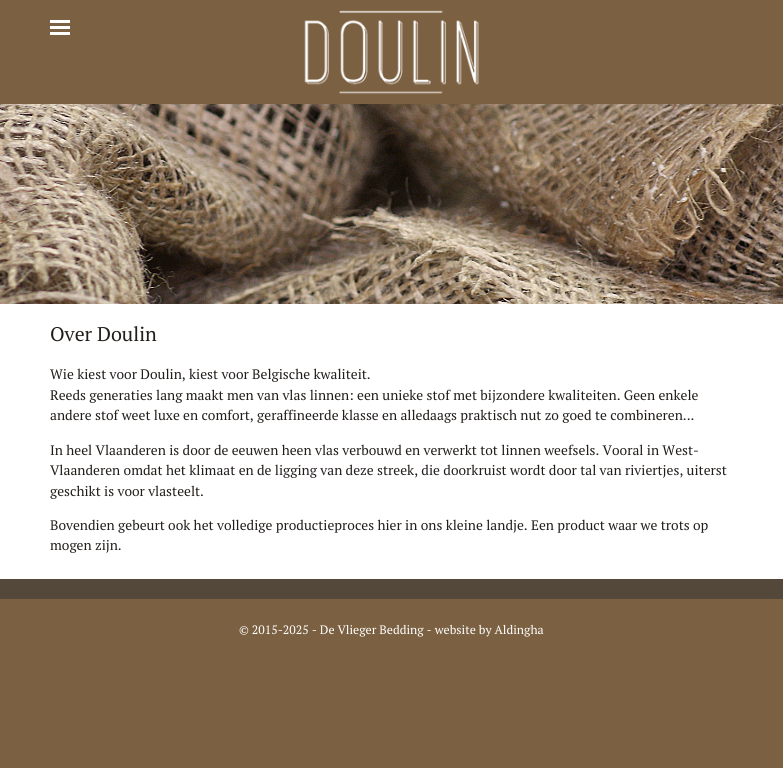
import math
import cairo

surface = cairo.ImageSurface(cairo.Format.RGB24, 783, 768)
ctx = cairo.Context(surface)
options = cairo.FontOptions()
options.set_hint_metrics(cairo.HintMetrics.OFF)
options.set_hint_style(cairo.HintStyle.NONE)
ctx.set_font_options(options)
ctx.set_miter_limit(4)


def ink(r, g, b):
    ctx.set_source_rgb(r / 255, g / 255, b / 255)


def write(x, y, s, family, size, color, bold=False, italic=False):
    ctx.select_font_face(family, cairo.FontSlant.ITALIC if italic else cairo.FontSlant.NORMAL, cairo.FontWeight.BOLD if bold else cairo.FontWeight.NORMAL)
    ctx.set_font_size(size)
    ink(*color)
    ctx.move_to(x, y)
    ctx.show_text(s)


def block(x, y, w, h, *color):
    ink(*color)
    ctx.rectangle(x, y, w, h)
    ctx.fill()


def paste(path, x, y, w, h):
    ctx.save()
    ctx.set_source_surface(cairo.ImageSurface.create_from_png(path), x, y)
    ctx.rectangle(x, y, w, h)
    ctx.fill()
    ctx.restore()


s1 = dict(family="PT Serif", size=19.75, color=(33, 29, 26))
s2 = dict(family="PT Serif", size=13.7, color=(33, 29, 26))
s3 = dict(family="PT Serif", size=12.15, color=(255, 255, 255))

ink(123, 96, 65)
ctx.paint()
paste("pic1.png", 50, 20, 20, 15)
paste("pic2.png", 304, 10, 175, 84)
paste("pic3.png", 0, 104, 783, 200)
block(0, 304, 783, 275, 255, 255, 255)
write(50, 341, "Over Doulin", **s1)
write(50, 379, "Wie kiest voor Doulin, kiest voor Belgische kwaliteit.", **s2)
write(50, 400, "Reeds generaties lang maakt men van vlas linnen: een unieke stof met bijzondere kwaliteiten. Geen enkele", **s2)
write(50, 420, "andere stof weet luxe en comfort, geraffineerde klasse en alledaags praktisch nut zo goed te combineren...", **s2)
write(50, 455, "In heel Vlaanderen is door de eeuwen heen vlas verbouwd en verwerkt tot linnen weefsels. Vooral in West-", **s2)
write(50, 475, "Vlaanderen omdat het klimaat en de ligging van deze streek, die doorkruist wordt door tal van riviertjes, uiterst", **s2)
write(50, 496, "geschikt is voor vlasteelt.", **s2)
write(50, 530, "Bovendien gebeurt ook het volledige productieproces hier in ons kleine landje. Een product waar we trots op", **s2)
write(50, 550, "mogen zijn.", **s2)
block(0, 579, 783, 20, 84, 72, 58)
write(239, 634, "© 2015-2025 - De Vlieger Bedding - website by Aldingha", **s3)
surface.write_to_png("screenshot.png")
